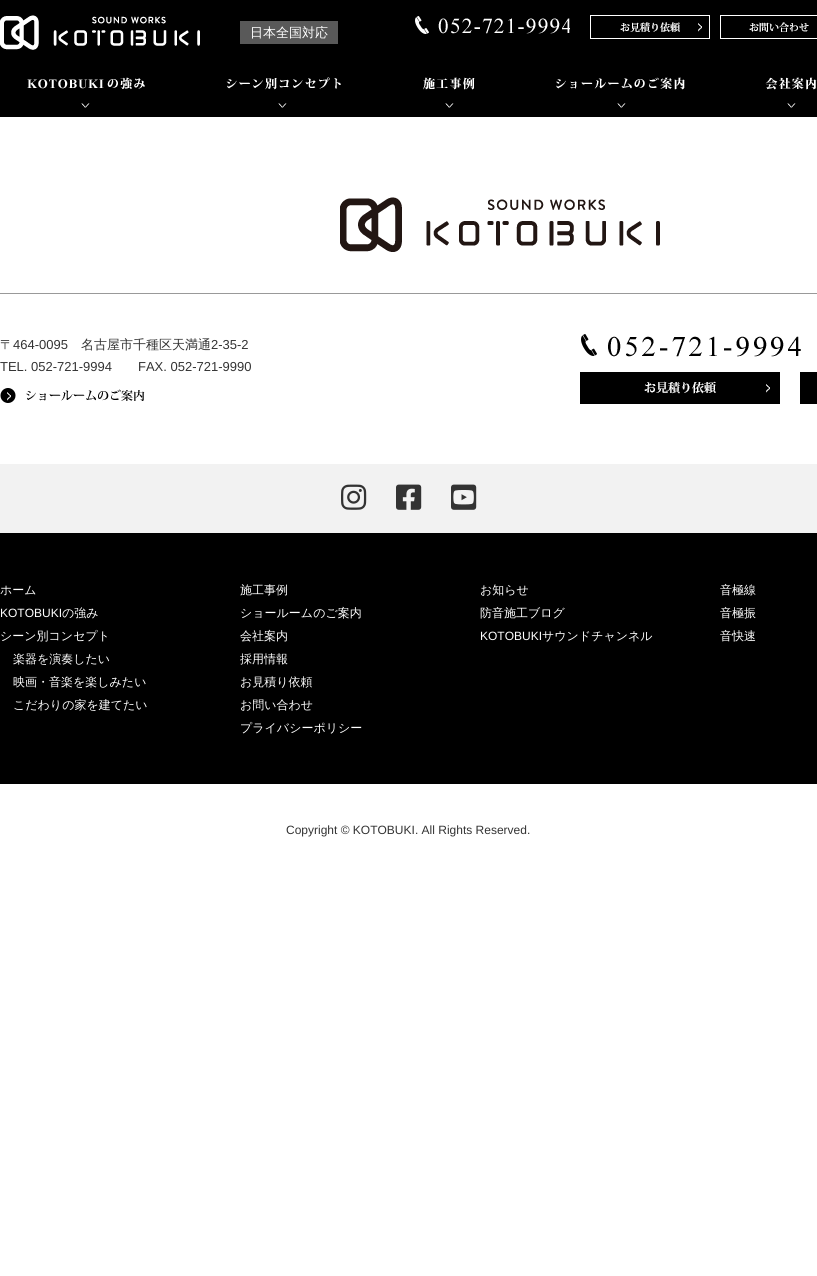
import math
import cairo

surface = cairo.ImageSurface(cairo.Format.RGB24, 817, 1276)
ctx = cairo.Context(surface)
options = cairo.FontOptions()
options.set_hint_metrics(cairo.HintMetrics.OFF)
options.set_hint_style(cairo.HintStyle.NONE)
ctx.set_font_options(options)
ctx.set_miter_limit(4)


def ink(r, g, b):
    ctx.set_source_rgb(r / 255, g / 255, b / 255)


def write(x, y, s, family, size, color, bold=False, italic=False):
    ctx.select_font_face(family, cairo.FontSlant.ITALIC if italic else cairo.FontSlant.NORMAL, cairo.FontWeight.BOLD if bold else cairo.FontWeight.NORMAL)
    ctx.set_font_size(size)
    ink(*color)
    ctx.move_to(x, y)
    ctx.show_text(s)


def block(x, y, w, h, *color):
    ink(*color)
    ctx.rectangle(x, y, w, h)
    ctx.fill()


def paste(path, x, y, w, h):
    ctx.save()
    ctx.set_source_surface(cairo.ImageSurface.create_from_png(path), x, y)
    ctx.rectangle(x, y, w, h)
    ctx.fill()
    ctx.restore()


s1 = dict(family="WenQuanYi Zen Hei Medium", size=13, color=(255, 255, 255))
s2 = dict(family="WenQuanYi Zen Hei Medium", size=13, color=(51, 51, 51))
s3 = dict(family="Liberation Sans", size=13, color=(51, 51, 51))
s4 = dict(family="WenQuanYi Zen Hei Medium", size=12, color=(255, 255, 255))
s5 = dict(family="Liberation Sans", size=12, color=(255, 255, 255))
s6 = dict(family="Liberation Sans", size=12, color=(51, 51, 51))

ink(255, 255, 255)
ctx.paint()
block(0, 0, 817, 117, 0, 0, 0)
paste("pic1.png", 0, 15, 200, 35)
block(240, 21, 98, 23, 89, 89, 89)
write(250, 37, "日本全国対応", **s1)
paste("pic2.png", 415, 16, 155, 18)
block(590, 15, 120, 24, 255, 255, 255)
paste("pic3.png", 591, 16, 118, 22)
block(720, 15, 97, 24, 255, 255, 255)
paste("pic4.png", 721, 16, 96, 22)
paste("pic5.png", 27, 77, 118, 31)
paste("pic6.png", 226, 77, 115, 31)
paste("pic7.png", 423, 77, 52, 31)
paste("pic8.png", 556, 77, 129, 31)
paste("pic9.png", 765, 77, 52, 31)
block(0, 293, 817, 1, 153, 153, 153)
paste("pic10.png", 340, 197, 320, 55)
write(0, 349, "〒", **s2)
write(13, 349, "464-0095", **s3)
write(81, 349, "名古屋市千種区天満通", **s2)
write(211, 349, "2-35-2", **s3)
write(0, 371, "TEL. 052-721-9994", **s3)
write(138, 371, "FAX. 052-721-9990", **s3)
paste("pic11.png", 0, 388, 145, 15)
paste("pic12.png", 581, 334, 220, 23)
paste("pic13.png", 580, 372, 200, 32)
block(800, 372, 17, 32, 0, 0, 0)
block(0, 464, 817, 69, 242, 242, 242)
paste("pic14.png", 341, 484, 26, 26)
paste("pic15.png", 396, 484, 26, 26)
paste("pic16.png", 451, 484, 26, 26)
block(0, 533, 817, 251, 0, 0, 0)
write(0, 594, "ホーム", **s4)
write(0, 617, "KOTOBUKI", **s5)
write(62, 617, "の強み", **s4)
write(0, 640, "シーン別コンセプト", **s4)
write(13, 663, "楽器を演奏したい", **s4)
write(13, 686, "映画・音楽を楽しみたい", **s4)
write(13, 709, "こだわりの家を建てたい", **s4)
write(240, 594, "施工事例", **s4)
write(240, 617, "ショールームのご案内", **s4)
write(240, 640, "会社案内", **s4)
write(240, 663, "採用情報", **s4)
write(240, 686, "お見積り依頼", **s4)
write(240, 709, "お問い合わせ", **s4)
write(240, 732, "プライバシーポリシー", **s4)
write(480, 594, "お知らせ", **s4)
write(480, 617, "防音施工ブログ", **s4)
write(480, 640, "KOTOBUKI", **s5)
write(542, 640, "サウンドチャンネル", **s4)
write(720, 594, "音極線", **s4)
write(720, 617, "音極振", **s4)
write(720, 640, "音快速", **s4)
write(286, 834, "Copyright © KOTOBUKI. All Rights Reserved.", **s6)
surface.write_to_png("screenshot.png")
